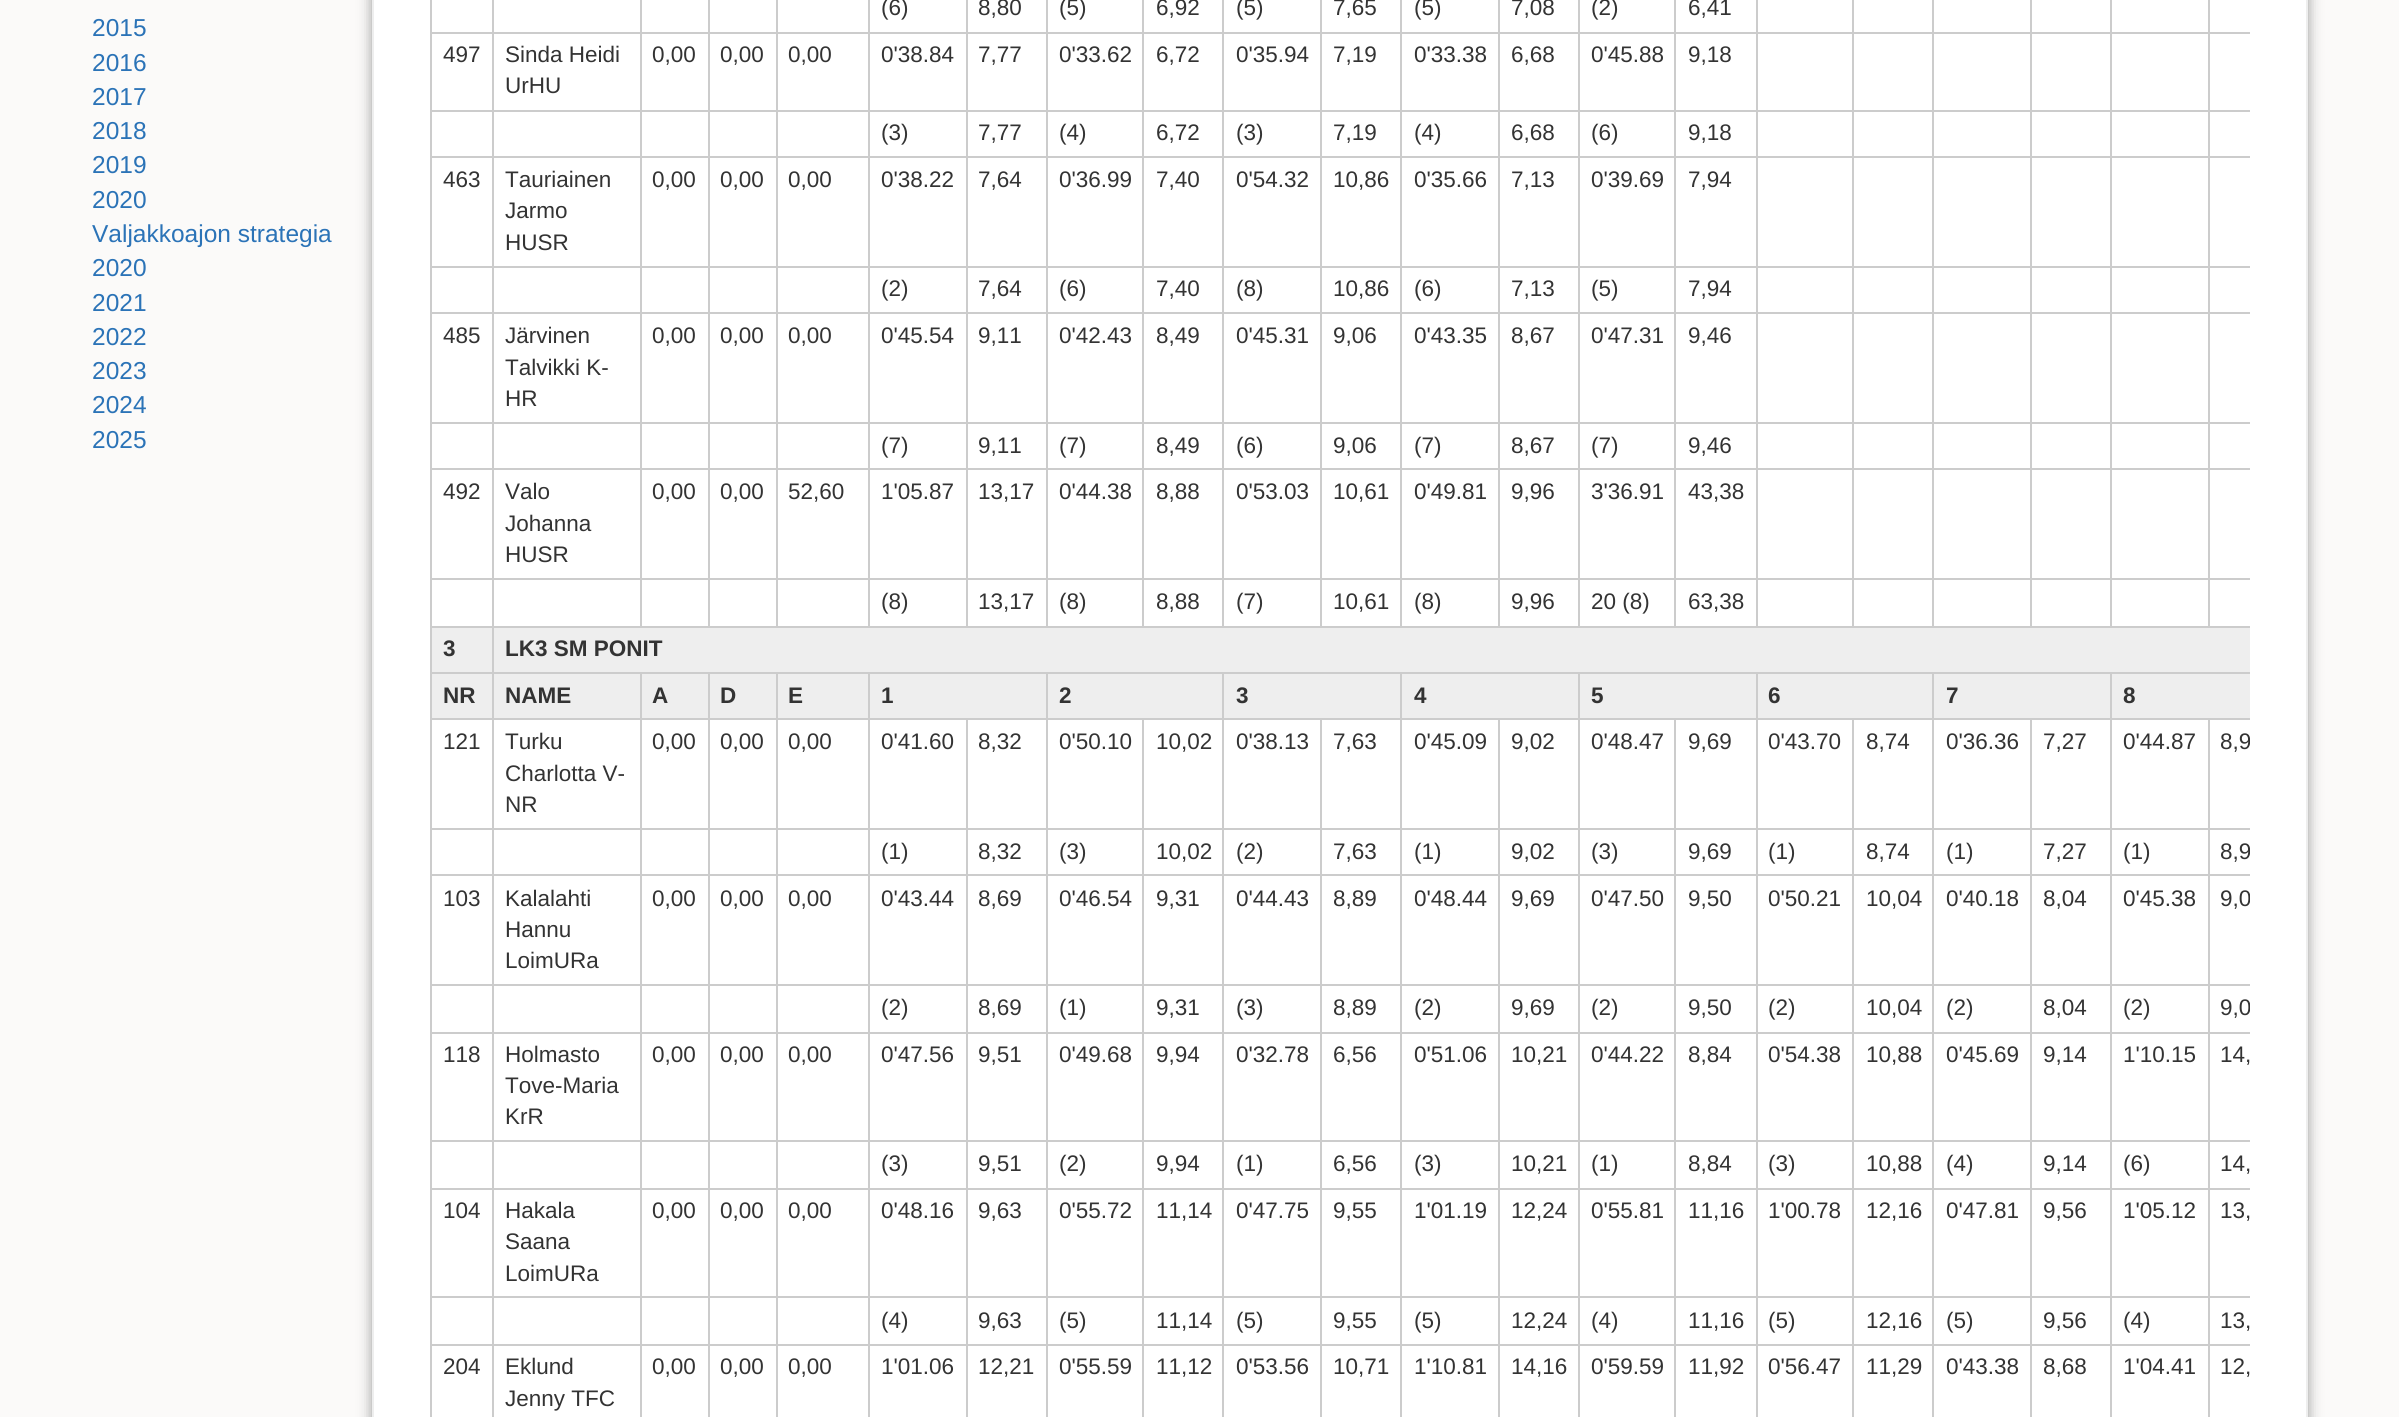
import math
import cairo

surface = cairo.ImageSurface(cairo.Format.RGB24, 2399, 1417)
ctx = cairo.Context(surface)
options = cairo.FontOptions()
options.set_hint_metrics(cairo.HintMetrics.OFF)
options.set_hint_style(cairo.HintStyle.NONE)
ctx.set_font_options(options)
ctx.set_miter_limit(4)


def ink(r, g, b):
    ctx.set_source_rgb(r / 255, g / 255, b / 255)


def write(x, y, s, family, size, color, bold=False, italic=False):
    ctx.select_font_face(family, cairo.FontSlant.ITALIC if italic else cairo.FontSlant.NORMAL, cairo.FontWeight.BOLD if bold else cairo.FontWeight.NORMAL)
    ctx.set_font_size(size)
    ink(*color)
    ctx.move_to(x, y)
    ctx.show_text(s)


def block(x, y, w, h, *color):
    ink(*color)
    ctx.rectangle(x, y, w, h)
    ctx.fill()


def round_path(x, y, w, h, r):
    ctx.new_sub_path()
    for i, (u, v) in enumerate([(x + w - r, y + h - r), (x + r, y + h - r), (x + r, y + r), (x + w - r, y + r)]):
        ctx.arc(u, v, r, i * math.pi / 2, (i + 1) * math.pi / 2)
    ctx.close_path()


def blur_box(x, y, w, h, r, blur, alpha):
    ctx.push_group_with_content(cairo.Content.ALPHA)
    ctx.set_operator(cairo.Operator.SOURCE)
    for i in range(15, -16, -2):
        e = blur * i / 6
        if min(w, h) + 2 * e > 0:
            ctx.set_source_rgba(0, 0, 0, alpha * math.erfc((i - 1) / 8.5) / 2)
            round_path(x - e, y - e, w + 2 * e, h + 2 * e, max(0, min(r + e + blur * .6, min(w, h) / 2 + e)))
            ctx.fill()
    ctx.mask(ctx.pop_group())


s1 = dict(family="Liberation Sans", size=24.5, color=(43, 115, 183))
s2 = dict(family="Liberation Sans", size=22.5, color=(51, 51, 51))
s3 = dict(family="Liberation Sans", size=22.5, color=(51, 51, 51), bold=True)

ink(251, 250, 249)
ctx.paint()
write(92, 36, "2015", **s1)
write(92, 71, "2016", **s1)
write(92, 105, "2017", **s1)
write(92, 139, "2018", **s1)
write(92, 173, "2019", **s1)
write(92, 208, "2020", **s1)
write(92, 242, "Valjakkoajon strategia", **s1)
write(92, 276, "2020", **s1)
write(92, 311, "2021", **s1)
write(92, 345, "2022", **s1)
write(92, 379, "2023", **s1)
write(92, 413, "2024", **s1)
write(92, 448, "2025", **s1)
ink(153, 153, 153)
blur_box(372, -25, 1936, 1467, 4, 7, 1)
ink(255, 255, 255)
ctx.rectangle(373, -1, 1934, 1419)
ctx.fill_preserve()
ink(238, 238, 238)
ctx.stroke()
block(430, 0, 2, 1417, 204, 204, 204)
block(2208, 32, 42, 2, 204, 204, 204)
block(2208, 110, 42, 2, 204, 204, 204)
block(2208, 156, 42, 2, 204, 204, 204)
block(2208, 266, 42, 2, 204, 204, 204)
block(2208, 312, 42, 2, 204, 204, 204)
block(2208, 422, 42, 2, 204, 204, 204)
block(2208, 468, 42, 2, 204, 204, 204)
block(2208, 578, 42, 2, 204, 204, 204)
block(492, 626, 1758, 2, 204, 204, 204)
block(2208, 578, 2, 50, 204, 204, 204)
block(2110, 578, 100, 2, 204, 204, 204)
block(2208, 468, 2, 112, 204, 204, 204)
block(2110, 468, 100, 2, 204, 204, 204)
block(2208, 422, 2, 48, 204, 204, 204)
block(2110, 422, 100, 2, 204, 204, 204)
block(2208, 312, 2, 112, 204, 204, 204)
block(2110, 312, 100, 2, 204, 204, 204)
block(2208, 266, 2, 48, 204, 204, 204)
block(2110, 266, 100, 2, 204, 204, 204)
block(2208, 156, 2, 112, 204, 204, 204)
block(2110, 156, 100, 2, 204, 204, 204)
block(2208, 110, 2, 48, 204, 204, 204)
block(2110, 110, 100, 2, 204, 204, 204)
block(2208, 32, 2, 80, 204, 204, 204)
block(2110, 32, 100, 2, 204, 204, 204)
block(2110, 578, 2, 50, 204, 204, 204)
block(2030, 578, 82, 2, 204, 204, 204)
block(2110, 468, 2, 112, 204, 204, 204)
block(2030, 468, 82, 2, 204, 204, 204)
block(2110, 422, 2, 48, 204, 204, 204)
block(2030, 422, 82, 2, 204, 204, 204)
block(2110, 312, 2, 112, 204, 204, 204)
block(2030, 312, 82, 2, 204, 204, 204)
block(2110, 266, 2, 48, 204, 204, 204)
block(2030, 266, 82, 2, 204, 204, 204)
block(2110, 156, 2, 112, 204, 204, 204)
block(2030, 156, 82, 2, 204, 204, 204)
block(2110, 110, 2, 48, 204, 204, 204)
block(2030, 110, 82, 2, 204, 204, 204)
block(2110, 32, 2, 80, 204, 204, 204)
block(2030, 32, 82, 2, 204, 204, 204)
block(2030, 578, 2, 50, 204, 204, 204)
block(1932, 578, 100, 2, 204, 204, 204)
block(2030, 468, 2, 112, 204, 204, 204)
block(1932, 468, 100, 2, 204, 204, 204)
block(2030, 422, 2, 48, 204, 204, 204)
block(1932, 422, 100, 2, 204, 204, 204)
block(2030, 312, 2, 112, 204, 204, 204)
block(1932, 312, 100, 2, 204, 204, 204)
block(2030, 266, 2, 48, 204, 204, 204)
block(1932, 266, 100, 2, 204, 204, 204)
block(2030, 156, 2, 112, 204, 204, 204)
block(1932, 156, 100, 2, 204, 204, 204)
block(2030, 110, 2, 48, 204, 204, 204)
block(1932, 110, 100, 2, 204, 204, 204)
block(2030, 32, 2, 80, 204, 204, 204)
block(1932, 32, 100, 2, 204, 204, 204)
block(1932, 578, 2, 50, 204, 204, 204)
block(1852, 578, 82, 2, 204, 204, 204)
block(1932, 468, 2, 112, 204, 204, 204)
block(1852, 468, 82, 2, 204, 204, 204)
block(1932, 422, 2, 48, 204, 204, 204)
block(1852, 422, 82, 2, 204, 204, 204)
block(1932, 312, 2, 112, 204, 204, 204)
block(1852, 312, 82, 2, 204, 204, 204)
block(1932, 266, 2, 48, 204, 204, 204)
block(1852, 266, 82, 2, 204, 204, 204)
block(1932, 156, 2, 112, 204, 204, 204)
block(1852, 156, 82, 2, 204, 204, 204)
block(1932, 110, 2, 48, 204, 204, 204)
block(1852, 110, 82, 2, 204, 204, 204)
block(1932, 32, 2, 80, 204, 204, 204)
block(1852, 32, 82, 2, 204, 204, 204)
block(1852, 578, 2, 50, 204, 204, 204)
block(1756, 578, 98, 2, 204, 204, 204)
block(1852, 468, 2, 112, 204, 204, 204)
block(1756, 468, 98, 2, 204, 204, 204)
block(1852, 422, 2, 48, 204, 204, 204)
block(1756, 422, 98, 2, 204, 204, 204)
block(1852, 312, 2, 112, 204, 204, 204)
block(1756, 312, 98, 2, 204, 204, 204)
block(1852, 266, 2, 48, 204, 204, 204)
block(1756, 266, 98, 2, 204, 204, 204)
block(1852, 156, 2, 112, 204, 204, 204)
block(1756, 156, 98, 2, 204, 204, 204)
block(1852, 110, 2, 48, 204, 204, 204)
block(1756, 110, 98, 2, 204, 204, 204)
block(1852, 32, 2, 80, 204, 204, 204)
block(1756, 32, 98, 2, 204, 204, 204)
block(1756, 578, 2, 50, 204, 204, 204)
block(1674, 578, 84, 2, 204, 204, 204)
block(1756, 468, 2, 112, 204, 204, 204)
block(1674, 468, 84, 2, 204, 204, 204)
block(1756, 422, 2, 48, 204, 204, 204)
block(1674, 422, 84, 2, 204, 204, 204)
block(1756, 312, 2, 112, 204, 204, 204)
block(1674, 312, 84, 2, 204, 204, 204)
block(1756, 266, 2, 48, 204, 204, 204)
block(1674, 266, 84, 2, 204, 204, 204)
block(1756, 156, 2, 112, 204, 204, 204)
block(1674, 156, 84, 2, 204, 204, 204)
block(1756, 110, 2, 48, 204, 204, 204)
block(1674, 110, 84, 2, 204, 204, 204)
block(1756, 32, 2, 80, 204, 204, 204)
block(1674, 32, 84, 2, 204, 204, 204)
block(1674, 578, 2, 50, 204, 204, 204)
block(1578, 578, 98, 2, 204, 204, 204)
block(1674, 468, 2, 112, 204, 204, 204)
block(1578, 468, 98, 2, 204, 204, 204)
block(1674, 422, 2, 48, 204, 204, 204)
block(1578, 422, 98, 2, 204, 204, 204)
block(1674, 312, 2, 112, 204, 204, 204)
block(1578, 312, 98, 2, 204, 204, 204)
block(1674, 266, 2, 48, 204, 204, 204)
block(1578, 266, 98, 2, 204, 204, 204)
block(1674, 156, 2, 112, 204, 204, 204)
block(1578, 156, 98, 2, 204, 204, 204)
block(1674, 110, 2, 48, 204, 204, 204)
block(1578, 110, 98, 2, 204, 204, 204)
block(1674, 32, 2, 80, 204, 204, 204)
block(1578, 32, 98, 2, 204, 204, 204)
block(1578, 578, 2, 50, 204, 204, 204)
block(1498, 578, 82, 2, 204, 204, 204)
block(1578, 468, 2, 112, 204, 204, 204)
block(1498, 468, 82, 2, 204, 204, 204)
block(1578, 422, 2, 48, 204, 204, 204)
block(1498, 422, 82, 2, 204, 204, 204)
block(1578, 312, 2, 112, 204, 204, 204)
block(1498, 312, 82, 2, 204, 204, 204)
block(1578, 266, 2, 48, 204, 204, 204)
block(1498, 266, 82, 2, 204, 204, 204)
block(1578, 156, 2, 112, 204, 204, 204)
block(1498, 156, 82, 2, 204, 204, 204)
block(1578, 110, 2, 48, 204, 204, 204)
block(1498, 110, 82, 2, 204, 204, 204)
block(1578, 32, 2, 80, 204, 204, 204)
block(1498, 32, 82, 2, 204, 204, 204)
block(1498, 578, 2, 50, 204, 204, 204)
block(1400, 578, 100, 2, 204, 204, 204)
block(1498, 468, 2, 112, 204, 204, 204)
block(1400, 468, 100, 2, 204, 204, 204)
block(1498, 422, 2, 48, 204, 204, 204)
block(1400, 422, 100, 2, 204, 204, 204)
block(1498, 312, 2, 112, 204, 204, 204)
block(1400, 312, 100, 2, 204, 204, 204)
block(1498, 266, 2, 48, 204, 204, 204)
block(1400, 266, 100, 2, 204, 204, 204)
block(1498, 156, 2, 112, 204, 204, 204)
block(1400, 156, 100, 2, 204, 204, 204)
block(1498, 110, 2, 48, 204, 204, 204)
block(1400, 110, 100, 2, 204, 204, 204)
block(1498, 32, 2, 80, 204, 204, 204)
block(1400, 32, 100, 2, 204, 204, 204)
block(1400, 578, 2, 50, 204, 204, 204)
block(1320, 578, 82, 2, 204, 204, 204)
block(1400, 468, 2, 112, 204, 204, 204)
block(1320, 468, 82, 2, 204, 204, 204)
block(1400, 422, 2, 48, 204, 204, 204)
block(1320, 422, 82, 2, 204, 204, 204)
block(1400, 312, 2, 112, 204, 204, 204)
block(1320, 312, 82, 2, 204, 204, 204)
block(1400, 266, 2, 48, 204, 204, 204)
block(1320, 266, 82, 2, 204, 204, 204)
block(1400, 156, 2, 112, 204, 204, 204)
block(1320, 156, 82, 2, 204, 204, 204)
block(1400, 110, 2, 48, 204, 204, 204)
block(1320, 110, 82, 2, 204, 204, 204)
block(1400, 32, 2, 80, 204, 204, 204)
block(1320, 32, 82, 2, 204, 204, 204)
block(1320, 578, 2, 50, 204, 204, 204)
block(1222, 578, 100, 2, 204, 204, 204)
block(1320, 468, 2, 112, 204, 204, 204)
block(1222, 468, 100, 2, 204, 204, 204)
block(1320, 422, 2, 48, 204, 204, 204)
block(1222, 422, 100, 2, 204, 204, 204)
block(1320, 312, 2, 112, 204, 204, 204)
block(1222, 312, 100, 2, 204, 204, 204)
block(1320, 266, 2, 48, 204, 204, 204)
block(1222, 266, 100, 2, 204, 204, 204)
block(1320, 156, 2, 112, 204, 204, 204)
block(1222, 156, 100, 2, 204, 204, 204)
block(1320, 110, 2, 48, 204, 204, 204)
block(1222, 110, 100, 2, 204, 204, 204)
block(1320, 32, 2, 80, 204, 204, 204)
block(1222, 32, 100, 2, 204, 204, 204)
block(1222, 578, 2, 50, 204, 204, 204)
block(1142, 578, 82, 2, 204, 204, 204)
block(1222, 468, 2, 112, 204, 204, 204)
block(1142, 468, 82, 2, 204, 204, 204)
block(1222, 422, 2, 48, 204, 204, 204)
block(1142, 422, 82, 2, 204, 204, 204)
block(1222, 312, 2, 112, 204, 204, 204)
block(1142, 312, 82, 2, 204, 204, 204)
block(1222, 266, 2, 48, 204, 204, 204)
block(1142, 266, 82, 2, 204, 204, 204)
block(1222, 156, 2, 112, 204, 204, 204)
block(1142, 156, 82, 2, 204, 204, 204)
block(1222, 110, 2, 48, 204, 204, 204)
block(1142, 110, 82, 2, 204, 204, 204)
block(1222, 32, 2, 80, 204, 204, 204)
block(1142, 32, 82, 2, 204, 204, 204)
block(1142, 578, 2, 50, 204, 204, 204)
block(1046, 578, 98, 2, 204, 204, 204)
block(1142, 468, 2, 112, 204, 204, 204)
block(1046, 468, 98, 2, 204, 204, 204)
block(1142, 422, 2, 48, 204, 204, 204)
block(1046, 422, 98, 2, 204, 204, 204)
block(1142, 312, 2, 112, 204, 204, 204)
block(1046, 312, 98, 2, 204, 204, 204)
block(1142, 266, 2, 48, 204, 204, 204)
block(1046, 266, 98, 2, 204, 204, 204)
block(1142, 156, 2, 112, 204, 204, 204)
block(1046, 156, 98, 2, 204, 204, 204)
block(1142, 110, 2, 48, 204, 204, 204)
block(1046, 110, 98, 2, 204, 204, 204)
block(1142, 32, 2, 80, 204, 204, 204)
block(1046, 32, 98, 2, 204, 204, 204)
block(1046, 578, 2, 50, 204, 204, 204)
block(966, 578, 82, 2, 204, 204, 204)
block(1046, 468, 2, 112, 204, 204, 204)
block(966, 468, 82, 2, 204, 204, 204)
block(1046, 422, 2, 48, 204, 204, 204)
block(966, 422, 82, 2, 204, 204, 204)
block(1046, 312, 2, 112, 204, 204, 204)
block(966, 312, 82, 2, 204, 204, 204)
block(1046, 266, 2, 48, 204, 204, 204)
block(966, 266, 82, 2, 204, 204, 204)
block(1046, 156, 2, 112, 204, 204, 204)
block(966, 156, 82, 2, 204, 204, 204)
block(1046, 110, 2, 48, 204, 204, 204)
block(966, 110, 82, 2, 204, 204, 204)
block(1046, 32, 2, 80, 204, 204, 204)
block(966, 32, 82, 2, 204, 204, 204)
block(966, 578, 2, 50, 204, 204, 204)
block(868, 578, 100, 2, 204, 204, 204)
block(966, 468, 2, 112, 204, 204, 204)
block(868, 468, 100, 2, 204, 204, 204)
block(966, 422, 2, 48, 204, 204, 204)
block(868, 422, 100, 2, 204, 204, 204)
block(966, 312, 2, 112, 204, 204, 204)
block(868, 312, 100, 2, 204, 204, 204)
block(966, 266, 2, 48, 204, 204, 204)
block(868, 266, 100, 2, 204, 204, 204)
block(966, 156, 2, 112, 204, 204, 204)
block(868, 156, 100, 2, 204, 204, 204)
block(966, 110, 2, 48, 204, 204, 204)
block(868, 110, 100, 2, 204, 204, 204)
block(966, 32, 2, 80, 204, 204, 204)
block(868, 32, 100, 2, 204, 204, 204)
block(868, 578, 2, 50, 204, 204, 204)
block(776, 578, 94, 2, 204, 204, 204)
block(868, 468, 2, 112, 204, 204, 204)
block(776, 468, 94, 2, 204, 204, 204)
block(868, 422, 2, 48, 204, 204, 204)
block(776, 422, 94, 2, 204, 204, 204)
block(868, 312, 2, 112, 204, 204, 204)
block(776, 312, 94, 2, 204, 204, 204)
block(868, 266, 2, 48, 204, 204, 204)
block(776, 266, 94, 2, 204, 204, 204)
block(868, 156, 2, 112, 204, 204, 204)
block(776, 156, 94, 2, 204, 204, 204)
block(868, 110, 2, 48, 204, 204, 204)
block(776, 110, 94, 2, 204, 204, 204)
block(868, 32, 2, 80, 204, 204, 204)
block(776, 32, 94, 2, 204, 204, 204)
block(776, 578, 2, 50, 204, 204, 204)
block(708, 578, 70, 2, 204, 204, 204)
block(776, 468, 2, 112, 204, 204, 204)
block(708, 468, 70, 2, 204, 204, 204)
block(776, 422, 2, 48, 204, 204, 204)
block(708, 422, 70, 2, 204, 204, 204)
block(776, 312, 2, 112, 204, 204, 204)
block(708, 312, 70, 2, 204, 204, 204)
block(776, 266, 2, 48, 204, 204, 204)
block(708, 266, 70, 2, 204, 204, 204)
block(776, 156, 2, 112, 204, 204, 204)
block(708, 156, 70, 2, 204, 204, 204)
block(776, 110, 2, 48, 204, 204, 204)
block(708, 110, 70, 2, 204, 204, 204)
block(776, 32, 2, 80, 204, 204, 204)
block(708, 32, 70, 2, 204, 204, 204)
block(708, 578, 2, 50, 204, 204, 204)
block(640, 578, 70, 2, 204, 204, 204)
block(708, 468, 2, 112, 204, 204, 204)
block(640, 468, 70, 2, 204, 204, 204)
block(708, 422, 2, 48, 204, 204, 204)
block(640, 422, 70, 2, 204, 204, 204)
block(708, 312, 2, 112, 204, 204, 204)
block(640, 312, 70, 2, 204, 204, 204)
block(708, 266, 2, 48, 204, 204, 204)
block(640, 266, 70, 2, 204, 204, 204)
block(708, 156, 2, 112, 204, 204, 204)
block(640, 156, 70, 2, 204, 204, 204)
block(708, 110, 2, 48, 204, 204, 204)
block(640, 110, 70, 2, 204, 204, 204)
block(708, 32, 2, 80, 204, 204, 204)
block(640, 32, 70, 2, 204, 204, 204)
block(640, 578, 2, 50, 204, 204, 204)
block(492, 578, 150, 2, 204, 204, 204)
block(640, 468, 2, 112, 204, 204, 204)
block(492, 468, 150, 2, 204, 204, 204)
block(640, 422, 2, 48, 204, 204, 204)
block(492, 422, 150, 2, 204, 204, 204)
block(640, 312, 2, 112, 204, 204, 204)
block(492, 312, 150, 2, 204, 204, 204)
block(640, 266, 2, 48, 204, 204, 204)
block(492, 266, 150, 2, 204, 204, 204)
block(640, 156, 2, 112, 204, 204, 204)
block(492, 156, 150, 2, 204, 204, 204)
block(640, 110, 2, 48, 204, 204, 204)
block(492, 110, 150, 2, 204, 204, 204)
block(640, 32, 2, 80, 204, 204, 204)
block(492, 32, 150, 2, 204, 204, 204)
block(2110, 672, 140, 2, 204, 204, 204)
block(2208, 718, 42, 2, 204, 204, 204)
block(2208, 828, 42, 2, 204, 204, 204)
block(2208, 874, 42, 2, 204, 204, 204)
block(2208, 984, 42, 2, 204, 204, 204)
block(2208, 1032, 42, 2, 204, 204, 204)
block(2208, 1140, 42, 2, 204, 204, 204)
block(2208, 1188, 42, 2, 204, 204, 204)
block(2208, 1296, 42, 2, 204, 204, 204)
block(2208, 1344, 42, 2, 204, 204, 204)
block(2208, 1344, 2, 73, 204, 204, 204)
block(2110, 1344, 100, 2, 204, 204, 204)
block(2208, 1296, 2, 50, 204, 204, 204)
block(2110, 1296, 100, 2, 204, 204, 204)
block(2208, 1188, 2, 110, 204, 204, 204)
block(2110, 1188, 100, 2, 204, 204, 204)
block(2208, 1140, 2, 50, 204, 204, 204)
block(2110, 1140, 100, 2, 204, 204, 204)
block(2208, 1032, 2, 110, 204, 204, 204)
block(2110, 1032, 100, 2, 204, 204, 204)
block(2208, 984, 2, 50, 204, 204, 204)
block(2110, 984, 100, 2, 204, 204, 204)
block(2208, 874, 2, 112, 204, 204, 204)
block(2110, 874, 100, 2, 204, 204, 204)
block(2208, 828, 2, 48, 204, 204, 204)
block(2110, 828, 100, 2, 204, 204, 204)
block(2208, 718, 2, 112, 204, 204, 204)
block(2110, 718, 100, 2, 204, 204, 204)
block(2110, 1344, 2, 73, 204, 204, 204)
block(2030, 1344, 82, 2, 204, 204, 204)
block(2110, 1296, 2, 50, 204, 204, 204)
block(2030, 1296, 82, 2, 204, 204, 204)
block(2110, 1188, 2, 110, 204, 204, 204)
block(2030, 1188, 82, 2, 204, 204, 204)
block(2110, 1140, 2, 50, 204, 204, 204)
block(2030, 1140, 82, 2, 204, 204, 204)
block(2110, 1032, 2, 110, 204, 204, 204)
block(2030, 1032, 82, 2, 204, 204, 204)
block(2110, 984, 2, 50, 204, 204, 204)
block(2030, 984, 82, 2, 204, 204, 204)
block(2110, 874, 2, 112, 204, 204, 204)
block(2030, 874, 82, 2, 204, 204, 204)
block(2110, 828, 2, 48, 204, 204, 204)
block(2030, 828, 82, 2, 204, 204, 204)
block(2110, 718, 2, 112, 204, 204, 204)
block(2030, 718, 82, 2, 204, 204, 204)
block(2110, 672, 2, 48, 204, 204, 204)
block(1932, 672, 180, 2, 204, 204, 204)
block(2030, 1344, 2, 73, 204, 204, 204)
block(1932, 1344, 100, 2, 204, 204, 204)
block(2030, 1296, 2, 50, 204, 204, 204)
block(1932, 1296, 100, 2, 204, 204, 204)
block(2030, 1188, 2, 110, 204, 204, 204)
block(1932, 1188, 100, 2, 204, 204, 204)
block(2030, 1140, 2, 50, 204, 204, 204)
block(1932, 1140, 100, 2, 204, 204, 204)
block(2030, 1032, 2, 110, 204, 204, 204)
block(1932, 1032, 100, 2, 204, 204, 204)
block(2030, 984, 2, 50, 204, 204, 204)
block(1932, 984, 100, 2, 204, 204, 204)
block(2030, 874, 2, 112, 204, 204, 204)
block(1932, 874, 100, 2, 204, 204, 204)
block(2030, 828, 2, 48, 204, 204, 204)
block(1932, 828, 100, 2, 204, 204, 204)
block(2030, 718, 2, 112, 204, 204, 204)
block(1932, 718, 100, 2, 204, 204, 204)
block(1932, 1344, 2, 73, 204, 204, 204)
block(1852, 1344, 82, 2, 204, 204, 204)
block(1932, 1296, 2, 50, 204, 204, 204)
block(1852, 1296, 82, 2, 204, 204, 204)
block(1932, 1188, 2, 110, 204, 204, 204)
block(1852, 1188, 82, 2, 204, 204, 204)
block(1932, 1140, 2, 50, 204, 204, 204)
block(1852, 1140, 82, 2, 204, 204, 204)
block(1932, 1032, 2, 110, 204, 204, 204)
block(1852, 1032, 82, 2, 204, 204, 204)
block(1932, 984, 2, 50, 204, 204, 204)
block(1852, 984, 82, 2, 204, 204, 204)
block(1932, 874, 2, 112, 204, 204, 204)
block(1852, 874, 82, 2, 204, 204, 204)
block(1932, 828, 2, 48, 204, 204, 204)
block(1852, 828, 82, 2, 204, 204, 204)
block(1932, 718, 2, 112, 204, 204, 204)
block(1852, 718, 82, 2, 204, 204, 204)
block(1932, 672, 2, 48, 204, 204, 204)
block(1756, 672, 178, 2, 204, 204, 204)
block(1852, 1344, 2, 73, 204, 204, 204)
block(1756, 1344, 98, 2, 204, 204, 204)
block(1852, 1296, 2, 50, 204, 204, 204)
block(1756, 1296, 98, 2, 204, 204, 204)
block(1852, 1188, 2, 110, 204, 204, 204)
block(1756, 1188, 98, 2, 204, 204, 204)
block(1852, 1140, 2, 50, 204, 204, 204)
block(1756, 1140, 98, 2, 204, 204, 204)
block(1852, 1032, 2, 110, 204, 204, 204)
block(1756, 1032, 98, 2, 204, 204, 204)
block(1852, 984, 2, 50, 204, 204, 204)
block(1756, 984, 98, 2, 204, 204, 204)
block(1852, 874, 2, 112, 204, 204, 204)
block(1756, 874, 98, 2, 204, 204, 204)
block(1852, 828, 2, 48, 204, 204, 204)
block(1756, 828, 98, 2, 204, 204, 204)
block(1852, 718, 2, 112, 204, 204, 204)
block(1756, 718, 98, 2, 204, 204, 204)
block(1756, 1344, 2, 73, 204, 204, 204)
block(1674, 1344, 84, 2, 204, 204, 204)
block(1756, 1296, 2, 50, 204, 204, 204)
block(1674, 1296, 84, 2, 204, 204, 204)
block(1756, 1188, 2, 110, 204, 204, 204)
block(1674, 1188, 84, 2, 204, 204, 204)
block(1756, 1140, 2, 50, 204, 204, 204)
block(1674, 1140, 84, 2, 204, 204, 204)
block(1756, 1032, 2, 110, 204, 204, 204)
block(1674, 1032, 84, 2, 204, 204, 204)
block(1756, 984, 2, 50, 204, 204, 204)
block(1674, 984, 84, 2, 204, 204, 204)
block(1756, 874, 2, 112, 204, 204, 204)
block(1674, 874, 84, 2, 204, 204, 204)
block(1756, 828, 2, 48, 204, 204, 204)
block(1674, 828, 84, 2, 204, 204, 204)
block(1756, 718, 2, 112, 204, 204, 204)
block(1674, 718, 84, 2, 204, 204, 204)
block(1756, 672, 2, 48, 204, 204, 204)
block(1578, 672, 180, 2, 204, 204, 204)
block(1674, 1344, 2, 73, 204, 204, 204)
block(1578, 1344, 98, 2, 204, 204, 204)
block(1674, 1296, 2, 50, 204, 204, 204)
block(1578, 1296, 98, 2, 204, 204, 204)
block(1674, 1188, 2, 110, 204, 204, 204)
block(1578, 1188, 98, 2, 204, 204, 204)
block(1674, 1140, 2, 50, 204, 204, 204)
block(1578, 1140, 98, 2, 204, 204, 204)
block(1674, 1032, 2, 110, 204, 204, 204)
block(1578, 1032, 98, 2, 204, 204, 204)
block(1674, 984, 2, 50, 204, 204, 204)
block(1578, 984, 98, 2, 204, 204, 204)
block(1674, 874, 2, 112, 204, 204, 204)
block(1578, 874, 98, 2, 204, 204, 204)
block(1674, 828, 2, 48, 204, 204, 204)
block(1578, 828, 98, 2, 204, 204, 204)
block(1674, 718, 2, 112, 204, 204, 204)
block(1578, 718, 98, 2, 204, 204, 204)
block(1578, 1344, 2, 73, 204, 204, 204)
block(1498, 1344, 82, 2, 204, 204, 204)
block(1578, 1296, 2, 50, 204, 204, 204)
block(1498, 1296, 82, 2, 204, 204, 204)
block(1578, 1188, 2, 110, 204, 204, 204)
block(1498, 1188, 82, 2, 204, 204, 204)
block(1578, 1140, 2, 50, 204, 204, 204)
block(1498, 1140, 82, 2, 204, 204, 204)
block(1578, 1032, 2, 110, 204, 204, 204)
block(1498, 1032, 82, 2, 204, 204, 204)
block(1578, 984, 2, 50, 204, 204, 204)
block(1498, 984, 82, 2, 204, 204, 204)
block(1578, 874, 2, 112, 204, 204, 204)
block(1498, 874, 82, 2, 204, 204, 204)
block(1578, 828, 2, 48, 204, 204, 204)
block(1498, 828, 82, 2, 204, 204, 204)
block(1578, 718, 2, 112, 204, 204, 204)
block(1498, 718, 82, 2, 204, 204, 204)
block(1578, 672, 2, 48, 204, 204, 204)
block(1400, 672, 180, 2, 204, 204, 204)
block(1498, 1344, 2, 73, 204, 204, 204)
block(1400, 1344, 100, 2, 204, 204, 204)
block(1498, 1296, 2, 50, 204, 204, 204)
block(1400, 1296, 100, 2, 204, 204, 204)
block(1498, 1188, 2, 110, 204, 204, 204)
block(1400, 1188, 100, 2, 204, 204, 204)
block(1498, 1140, 2, 50, 204, 204, 204)
block(1400, 1140, 100, 2, 204, 204, 204)
block(1498, 1032, 2, 110, 204, 204, 204)
block(1400, 1032, 100, 2, 204, 204, 204)
block(1498, 984, 2, 50, 204, 204, 204)
block(1400, 984, 100, 2, 204, 204, 204)
block(1498, 874, 2, 112, 204, 204, 204)
block(1400, 874, 100, 2, 204, 204, 204)
block(1498, 828, 2, 48, 204, 204, 204)
block(1400, 828, 100, 2, 204, 204, 204)
block(1498, 718, 2, 112, 204, 204, 204)
block(1400, 718, 100, 2, 204, 204, 204)
block(1400, 1344, 2, 73, 204, 204, 204)
block(1320, 1344, 82, 2, 204, 204, 204)
block(1400, 1296, 2, 50, 204, 204, 204)
block(1320, 1296, 82, 2, 204, 204, 204)
block(1400, 1188, 2, 110, 204, 204, 204)
block(1320, 1188, 82, 2, 204, 204, 204)
block(1400, 1140, 2, 50, 204, 204, 204)
block(1320, 1140, 82, 2, 204, 204, 204)
block(1400, 1032, 2, 110, 204, 204, 204)
block(1320, 1032, 82, 2, 204, 204, 204)
block(1400, 984, 2, 50, 204, 204, 204)
block(1320, 984, 82, 2, 204, 204, 204)
block(1400, 874, 2, 112, 204, 204, 204)
block(1320, 874, 82, 2, 204, 204, 204)
block(1400, 828, 2, 48, 204, 204, 204)
block(1320, 828, 82, 2, 204, 204, 204)
block(1400, 718, 2, 112, 204, 204, 204)
block(1320, 718, 82, 2, 204, 204, 204)
block(1400, 672, 2, 48, 204, 204, 204)
block(1222, 672, 180, 2, 204, 204, 204)
block(1320, 1344, 2, 73, 204, 204, 204)
block(1222, 1344, 100, 2, 204, 204, 204)
block(1320, 1296, 2, 50, 204, 204, 204)
block(1222, 1296, 100, 2, 204, 204, 204)
block(1320, 1188, 2, 110, 204, 204, 204)
block(1222, 1188, 100, 2, 204, 204, 204)
block(1320, 1140, 2, 50, 204, 204, 204)
block(1222, 1140, 100, 2, 204, 204, 204)
block(1320, 1032, 2, 110, 204, 204, 204)
block(1222, 1032, 100, 2, 204, 204, 204)
block(1320, 984, 2, 50, 204, 204, 204)
block(1222, 984, 100, 2, 204, 204, 204)
block(1320, 874, 2, 112, 204, 204, 204)
block(1222, 874, 100, 2, 204, 204, 204)
block(1320, 828, 2, 48, 204, 204, 204)
block(1222, 828, 100, 2, 204, 204, 204)
block(1320, 718, 2, 112, 204, 204, 204)
block(1222, 718, 100, 2, 204, 204, 204)
block(1222, 1344, 2, 73, 204, 204, 204)
block(1142, 1344, 82, 2, 204, 204, 204)
block(1222, 1296, 2, 50, 204, 204, 204)
block(1142, 1296, 82, 2, 204, 204, 204)
block(1222, 1188, 2, 110, 204, 204, 204)
block(1142, 1188, 82, 2, 204, 204, 204)
block(1222, 1140, 2, 50, 204, 204, 204)
block(1142, 1140, 82, 2, 204, 204, 204)
block(1222, 1032, 2, 110, 204, 204, 204)
block(1142, 1032, 82, 2, 204, 204, 204)
block(1222, 984, 2, 50, 204, 204, 204)
block(1142, 984, 82, 2, 204, 204, 204)
block(1222, 874, 2, 112, 204, 204, 204)
block(1142, 874, 82, 2, 204, 204, 204)
block(1222, 828, 2, 48, 204, 204, 204)
block(1142, 828, 82, 2, 204, 204, 204)
block(1222, 718, 2, 112, 204, 204, 204)
block(1142, 718, 82, 2, 204, 204, 204)
block(1222, 672, 2, 48, 204, 204, 204)
block(1046, 672, 178, 2, 204, 204, 204)
block(1142, 1344, 2, 73, 204, 204, 204)
block(1046, 1344, 98, 2, 204, 204, 204)
block(1142, 1296, 2, 50, 204, 204, 204)
block(1046, 1296, 98, 2, 204, 204, 204)
block(1142, 1188, 2, 110, 204, 204, 204)
block(1046, 1188, 98, 2, 204, 204, 204)
block(1142, 1140, 2, 50, 204, 204, 204)
block(1046, 1140, 98, 2, 204, 204, 204)
block(1142, 1032, 2, 110, 204, 204, 204)
block(1046, 1032, 98, 2, 204, 204, 204)
block(1142, 984, 2, 50, 204, 204, 204)
block(1046, 984, 98, 2, 204, 204, 204)
block(1142, 874, 2, 112, 204, 204, 204)
block(1046, 874, 98, 2, 204, 204, 204)
block(1142, 828, 2, 48, 204, 204, 204)
block(1046, 828, 98, 2, 204, 204, 204)
block(1142, 718, 2, 112, 204, 204, 204)
block(1046, 718, 98, 2, 204, 204, 204)
block(1046, 1344, 2, 73, 204, 204, 204)
block(966, 1344, 82, 2, 204, 204, 204)
block(1046, 1296, 2, 50, 204, 204, 204)
block(966, 1296, 82, 2, 204, 204, 204)
block(1046, 1188, 2, 110, 204, 204, 204)
block(966, 1188, 82, 2, 204, 204, 204)
block(1046, 1140, 2, 50, 204, 204, 204)
block(966, 1140, 82, 2, 204, 204, 204)
block(1046, 1032, 2, 110, 204, 204, 204)
block(966, 1032, 82, 2, 204, 204, 204)
block(1046, 984, 2, 50, 204, 204, 204)
block(966, 984, 82, 2, 204, 204, 204)
block(1046, 874, 2, 112, 204, 204, 204)
block(966, 874, 82, 2, 204, 204, 204)
block(1046, 828, 2, 48, 204, 204, 204)
block(966, 828, 82, 2, 204, 204, 204)
block(1046, 718, 2, 112, 204, 204, 204)
block(966, 718, 82, 2, 204, 204, 204)
block(1046, 672, 2, 48, 204, 204, 204)
block(868, 672, 180, 2, 204, 204, 204)
block(966, 1344, 2, 73, 204, 204, 204)
block(868, 1344, 100, 2, 204, 204, 204)
block(966, 1296, 2, 50, 204, 204, 204)
block(868, 1296, 100, 2, 204, 204, 204)
block(966, 1188, 2, 110, 204, 204, 204)
block(868, 1188, 100, 2, 204, 204, 204)
block(966, 1140, 2, 50, 204, 204, 204)
block(868, 1140, 100, 2, 204, 204, 204)
block(966, 1032, 2, 110, 204, 204, 204)
block(868, 1032, 100, 2, 204, 204, 204)
block(966, 984, 2, 50, 204, 204, 204)
block(868, 984, 100, 2, 204, 204, 204)
block(966, 874, 2, 112, 204, 204, 204)
block(868, 874, 100, 2, 204, 204, 204)
block(966, 828, 2, 48, 204, 204, 204)
block(868, 828, 100, 2, 204, 204, 204)
block(966, 718, 2, 112, 204, 204, 204)
block(868, 718, 100, 2, 204, 204, 204)
block(868, 1344, 2, 73, 204, 204, 204)
block(776, 1344, 94, 2, 204, 204, 204)
block(868, 1296, 2, 50, 204, 204, 204)
block(776, 1296, 94, 2, 204, 204, 204)
block(868, 1188, 2, 110, 204, 204, 204)
block(776, 1188, 94, 2, 204, 204, 204)
block(868, 1140, 2, 50, 204, 204, 204)
block(776, 1140, 94, 2, 204, 204, 204)
block(868, 1032, 2, 110, 204, 204, 204)
block(776, 1032, 94, 2, 204, 204, 204)
block(868, 984, 2, 50, 204, 204, 204)
block(776, 984, 94, 2, 204, 204, 204)
block(868, 874, 2, 112, 204, 204, 204)
block(776, 874, 94, 2, 204, 204, 204)
block(868, 828, 2, 48, 204, 204, 204)
block(776, 828, 94, 2, 204, 204, 204)
block(868, 718, 2, 112, 204, 204, 204)
block(776, 718, 94, 2, 204, 204, 204)
block(868, 672, 2, 48, 204, 204, 204)
block(776, 672, 94, 2, 204, 204, 204)
block(776, 1344, 2, 73, 204, 204, 204)
block(708, 1344, 70, 2, 204, 204, 204)
block(776, 1296, 2, 50, 204, 204, 204)
block(708, 1296, 70, 2, 204, 204, 204)
block(776, 1188, 2, 110, 204, 204, 204)
block(708, 1188, 70, 2, 204, 204, 204)
block(776, 1140, 2, 50, 204, 204, 204)
block(708, 1140, 70, 2, 204, 204, 204)
block(776, 1032, 2, 110, 204, 204, 204)
block(708, 1032, 70, 2, 204, 204, 204)
block(776, 984, 2, 50, 204, 204, 204)
block(708, 984, 70, 2, 204, 204, 204)
block(776, 874, 2, 112, 204, 204, 204)
block(708, 874, 70, 2, 204, 204, 204)
block(776, 828, 2, 48, 204, 204, 204)
block(708, 828, 70, 2, 204, 204, 204)
block(776, 718, 2, 112, 204, 204, 204)
block(708, 718, 70, 2, 204, 204, 204)
block(776, 672, 2, 48, 204, 204, 204)
block(708, 672, 70, 2, 204, 204, 204)
block(708, 1344, 2, 73, 204, 204, 204)
block(640, 1344, 70, 2, 204, 204, 204)
block(708, 1296, 2, 50, 204, 204, 204)
block(640, 1296, 70, 2, 204, 204, 204)
block(708, 1188, 2, 110, 204, 204, 204)
block(640, 1188, 70, 2, 204, 204, 204)
block(708, 1140, 2, 50, 204, 204, 204)
block(640, 1140, 70, 2, 204, 204, 204)
block(708, 1032, 2, 110, 204, 204, 204)
block(640, 1032, 70, 2, 204, 204, 204)
block(708, 984, 2, 50, 204, 204, 204)
block(640, 984, 70, 2, 204, 204, 204)
block(708, 874, 2, 112, 204, 204, 204)
block(640, 874, 70, 2, 204, 204, 204)
block(708, 828, 2, 48, 204, 204, 204)
block(640, 828, 70, 2, 204, 204, 204)
block(708, 718, 2, 112, 204, 204, 204)
block(640, 718, 70, 2, 204, 204, 204)
block(708, 672, 2, 48, 204, 204, 204)
block(640, 672, 70, 2, 204, 204, 204)
block(640, 1344, 2, 73, 204, 204, 204)
block(492, 1344, 150, 2, 204, 204, 204)
block(640, 1296, 2, 50, 204, 204, 204)
block(492, 1296, 150, 2, 204, 204, 204)
block(640, 1188, 2, 110, 204, 204, 204)
block(492, 1188, 150, 2, 204, 204, 204)
block(640, 1140, 2, 50, 204, 204, 204)
block(492, 1140, 150, 2, 204, 204, 204)
block(640, 1032, 2, 110, 204, 204, 204)
block(492, 1032, 150, 2, 204, 204, 204)
block(640, 984, 2, 50, 204, 204, 204)
block(492, 984, 150, 2, 204, 204, 204)
block(640, 874, 2, 112, 204, 204, 204)
block(492, 874, 150, 2, 204, 204, 204)
block(640, 828, 2, 48, 204, 204, 204)
block(492, 828, 150, 2, 204, 204, 204)
block(640, 718, 2, 112, 204, 204, 204)
block(492, 718, 150, 2, 204, 204, 204)
block(640, 672, 2, 48, 204, 204, 204)
block(492, 672, 150, 2, 204, 204, 204)
block(492, 1344, 2, 73, 204, 204, 204)
block(430, 1344, 64, 2, 204, 204, 204)
block(492, 1296, 2, 50, 204, 204, 204)
block(430, 1296, 64, 2, 204, 204, 204)
block(492, 1188, 2, 110, 204, 204, 204)
block(430, 1188, 64, 2, 204, 204, 204)
block(492, 1140, 2, 50, 204, 204, 204)
block(430, 1140, 64, 2, 204, 204, 204)
block(492, 1032, 2, 110, 204, 204, 204)
block(430, 1032, 64, 2, 204, 204, 204)
block(492, 984, 2, 50, 204, 204, 204)
block(430, 984, 64, 2, 204, 204, 204)
block(492, 874, 2, 112, 204, 204, 204)
block(430, 874, 64, 2, 204, 204, 204)
block(492, 828, 2, 48, 204, 204, 204)
block(430, 828, 64, 2, 204, 204, 204)
block(492, 718, 2, 112, 204, 204, 204)
block(430, 718, 64, 2, 204, 204, 204)
block(492, 672, 2, 48, 204, 204, 204)
block(430, 672, 64, 2, 204, 204, 204)
block(492, 626, 2, 48, 204, 204, 204)
block(430, 626, 64, 2, 204, 204, 204)
block(492, 578, 2, 50, 204, 204, 204)
block(430, 578, 64, 2, 204, 204, 204)
block(492, 468, 2, 112, 204, 204, 204)
block(430, 468, 64, 2, 204, 204, 204)
block(492, 422, 2, 48, 204, 204, 204)
block(430, 422, 64, 2, 204, 204, 204)
block(492, 312, 2, 112, 204, 204, 204)
block(430, 312, 64, 2, 204, 204, 204)
block(492, 266, 2, 48, 204, 204, 204)
block(430, 266, 64, 2, 204, 204, 204)
block(492, 156, 2, 112, 204, 204, 204)
block(430, 156, 64, 2, 204, 204, 204)
block(492, 110, 2, 48, 204, 204, 204)
block(430, 110, 64, 2, 204, 204, 204)
block(492, 32, 2, 80, 204, 204, 204)
block(430, 32, 64, 2, 204, 204, 204)
block(492, 0, 2, 34, 204, 204, 204)
block(640, 0, 2, 34, 204, 204, 204)
block(708, 0, 2, 34, 204, 204, 204)
block(776, 0, 2, 34, 204, 204, 204)
block(868, 0, 2, 34, 204, 204, 204)
write(881, 15, "(6)", **s2)
block(966, 0, 2, 34, 204, 204, 204)
write(978, 15, "8,80", **s2)
block(1046, 0, 2, 34, 204, 204, 204)
write(1059, 15, "(5)", **s2)
block(1142, 0, 2, 34, 204, 204, 204)
write(1156, 15, "6,92", **s2)
block(1222, 0, 2, 34, 204, 204, 204)
write(1236, 15, "(5)", **s2)
block(1320, 0, 2, 34, 204, 204, 204)
write(1333, 15, "7,65", **s2)
block(1400, 0, 2, 34, 204, 204, 204)
write(1414, 15, "(5)", **s2)
block(1498, 0, 2, 34, 204, 204, 204)
write(1511, 15, "7,08", **s2)
block(1578, 0, 2, 34, 204, 204, 204)
write(1591, 15, "(2)", **s2)
block(1674, 0, 2, 34, 204, 204, 204)
write(1688, 15, "6,41", **s2)
block(1756, 0, 2, 34, 204, 204, 204)
block(1852, 0, 2, 34, 204, 204, 204)
block(1932, 0, 2, 34, 204, 204, 204)
block(2030, 0, 2, 34, 204, 204, 204)
block(2110, 0, 2, 34, 204, 204, 204)
block(2208, 0, 2, 34, 204, 204, 204)
write(443, 62, "497", **s2)
write(505, 62, "Sinda Heidi", **s2)
write(505, 93, "UrHU", **s2)
write(652, 62, "0,00", **s2)
write(720, 62, "0,00", **s2)
write(788, 62, "0,00", **s2)
write(881, 62, "0'38.84", **s2)
write(978, 62, "7,77", **s2)
write(1059, 62, "0'33.62", **s2)
write(1156, 62, "6,72", **s2)
write(1236, 62, "0'35.94", **s2)
write(1333, 62, "7,19", **s2)
write(1414, 62, "0'33.38", **s2)
write(1511, 62, "6,68", **s2)
write(1591, 62, "0'45.88", **s2)
write(1688, 62, "9,18", **s2)
write(881, 140, "(3)", **s2)
write(978, 140, "7,77", **s2)
write(1059, 140, "(4)", **s2)
write(1156, 140, "6,72", **s2)
write(1236, 140, "(3)", **s2)
write(1333, 140, "7,19", **s2)
write(1414, 140, "(4)", **s2)
write(1511, 140, "6,68", **s2)
write(1591, 140, "(6)", **s2)
write(1688, 140, "9,18", **s2)
write(443, 187, "463", **s2)
write(505, 187, "Tauriainen", **s2)
write(505, 218, "Jarmo", **s2)
write(505, 250, "HUSR", **s2)
write(652, 187, "0,00", **s2)
write(720, 187, "0,00", **s2)
write(788, 187, "0,00", **s2)
write(881, 187, "0'38.22", **s2)
write(978, 187, "7,64", **s2)
write(1059, 187, "0'36.99", **s2)
write(1156, 187, "7,40", **s2)
write(1236, 187, "0'54.32", **s2)
write(1333, 187, "10,86", **s2)
write(1414, 187, "0'35.66", **s2)
write(1511, 187, "7,13", **s2)
write(1591, 187, "0'39.69", **s2)
write(1688, 187, "7,94", **s2)
write(881, 296, "(2)", **s2)
write(978, 296, "7,64", **s2)
write(1059, 296, "(6)", **s2)
write(1156, 296, "7,40", **s2)
write(1236, 296, "(8)", **s2)
write(1333, 296, "10,86", **s2)
write(1414, 296, "(6)", **s2)
write(1511, 296, "7,13", **s2)
write(1591, 296, "(5)", **s2)
write(1688, 296, "7,94", **s2)
write(443, 343, "485", **s2)
write(505, 343, "Järvinen", **s2)
write(505, 375, "Talvikki K-", **s2)
write(505, 406, "HR", **s2)
write(652, 343, "0,00", **s2)
write(720, 343, "0,00", **s2)
write(788, 343, "0,00", **s2)
write(881, 343, "0'45.54", **s2)
write(978, 343, "9,11", **s2)
write(1059, 343, "0'42.43", **s2)
write(1156, 343, "8,49", **s2)
write(1236, 343, "0'45.31", **s2)
write(1333, 343, "9,06", **s2)
write(1414, 343, "0'43.35", **s2)
write(1511, 343, "8,67", **s2)
write(1591, 343, "0'47.31", **s2)
write(1688, 343, "9,46", **s2)
write(881, 453, "(7)", **s2)
write(978, 453, "9,11", **s2)
write(1059, 453, "(7)", **s2)
write(1156, 453, "8,49", **s2)
write(1236, 453, "(6)", **s2)
write(1333, 453, "9,06", **s2)
write(1414, 453, "(7)", **s2)
write(1511, 453, "8,67", **s2)
write(1591, 453, "(7)", **s2)
write(1688, 453, "9,46", **s2)
write(443, 499, "492", **s2)
write(505, 499, "Valo", **s2)
write(505, 531, "Johanna", **s2)
write(505, 562, "HUSR", **s2)
write(652, 499, "0,00", **s2)
write(720, 499, "0,00", **s2)
write(788, 499, "52,60", **s2)
write(881, 499, "1'05.87", **s2)
write(978, 499, "13,17", **s2)
write(1059, 499, "0'44.38", **s2)
write(1156, 499, "8,88", **s2)
write(1236, 499, "0'53.03", **s2)
write(1333, 499, "10,61", **s2)
write(1414, 499, "0'49.81", **s2)
write(1511, 499, "9,96", **s2)
write(1591, 499, "3'36.91", **s2)
write(1688, 499, "43,38", **s2)
write(881, 609, "(8)", **s2)
write(978, 609, "13,17", **s2)
write(1059, 609, "(8)", **s2)
write(1156, 609, "8,88", **s2)
write(1236, 609, "(7)", **s2)
write(1333, 609, "10,61", **s2)
write(1414, 609, "(8)", **s2)
write(1511, 609, "9,96", **s2)
write(1591, 609, "20 (8)", **s2)
write(1688, 609, "63,38", **s2)
block(432, 628, 60, 44, 238, 238, 238)
write(443, 656, "3", **s3)
block(494, 628, 1756, 44, 238, 238, 238)
write(505, 656, "LK3 SM PONIT", **s3)
block(432, 674, 60, 44, 238, 238, 238)
write(443, 703, "NR", **s3)
block(494, 674, 146, 44, 238, 238, 238)
write(505, 703, "NAME", **s3)
block(642, 674, 66, 44, 238, 238, 238)
write(652, 703, "A", **s3)
block(710, 674, 66, 44, 238, 238, 238)
write(720, 703, "D", **s3)
block(778, 674, 90, 44, 238, 238, 238)
write(788, 703, "E", **s3)
block(870, 674, 176, 44, 238, 238, 238)
write(881, 703, "1", **s3)
block(1048, 674, 174, 44, 238, 238, 238)
write(1059, 703, "2", **s3)
block(1224, 674, 176, 44, 238, 238, 238)
write(1236, 703, "3", **s3)
block(1402, 674, 176, 44, 238, 238, 238)
write(1414, 703, "4", **s3)
block(1580, 674, 176, 44, 238, 238, 238)
write(1591, 703, "5", **s3)
block(1758, 674, 174, 44, 238, 238, 238)
write(1768, 703, "6", **s3)
block(1934, 674, 176, 44, 238, 238, 238)
write(1946, 703, "7", **s3)
block(2112, 674, 138, 44, 238, 238, 238)
write(2123, 703, "8", **s3)
write(443, 749, "121", **s2)
write(505, 749, "Turku", **s2)
write(505, 781, "Charlotta V-", **s2)
write(505, 812, "NR", **s2)
write(652, 749, "0,00", **s2)
write(720, 749, "0,00", **s2)
write(788, 749, "0,00", **s2)
write(881, 749, "0'41.60", **s2)
write(978, 749, "8,32", **s2)
write(1059, 749, "0'50.10", **s2)
write(1156, 749, "10,02", **s2)
write(1236, 749, "0'38.13", **s2)
write(1333, 749, "7,63", **s2)
write(1414, 749, "0'45.09", **s2)
write(1511, 749, "9,02", **s2)
write(1591, 749, "0'48.47", **s2)
write(1688, 749, "9,69", **s2)
write(1768, 749, "0'43.70", **s2)
write(1866, 749, "8,74", **s2)
write(1946, 749, "0'36.36", **s2)
write(2043, 749, "7,27", **s2)
write(2123, 749, "0'44.87", **s2)
ctx.save()
ctx.rectangle(430, 0, 1820, 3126)
ctx.clip()
write(2220, 749, "8,9", **s2)
ctx.restore()
write(881, 859, "(1)", **s2)
write(978, 859, "8,32", **s2)
write(1059, 859, "(3)", **s2)
write(1156, 859, "10,02", **s2)
write(1236, 859, "(2)", **s2)
write(1333, 859, "7,63", **s2)
write(1414, 859, "(1)", **s2)
write(1511, 859, "9,02", **s2)
write(1591, 859, "(3)", **s2)
write(1688, 859, "9,69", **s2)
write(1768, 859, "(1)", **s2)
write(1866, 859, "8,74", **s2)
write(1946, 859, "(1)", **s2)
write(2043, 859, "7,27", **s2)
write(2123, 859, "(1)", **s2)
ctx.save()
ctx.rectangle(430, 0, 1820, 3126)
ctx.clip()
write(2220, 859, "8,9", **s2)
ctx.restore()
write(443, 906, "103", **s2)
write(505, 906, "Kalalahti", **s2)
write(505, 937, "Hannu", **s2)
write(505, 968, "LoimURa", **s2)
write(652, 906, "0,00", **s2)
write(720, 906, "0,00", **s2)
write(788, 906, "0,00", **s2)
write(881, 906, "0'43.44", **s2)
write(978, 906, "8,69", **s2)
write(1059, 906, "0'46.54", **s2)
write(1156, 906, "9,31", **s2)
write(1236, 906, "0'44.43", **s2)
write(1333, 906, "8,89", **s2)
write(1414, 906, "0'48.44", **s2)
write(1511, 906, "9,69", **s2)
write(1591, 906, "0'47.50", **s2)
write(1688, 906, "9,50", **s2)
write(1768, 906, "0'50.21", **s2)
write(1866, 906, "10,04", **s2)
write(1946, 906, "0'40.18", **s2)
write(2043, 906, "8,04", **s2)
write(2123, 906, "0'45.38", **s2)
ctx.save()
ctx.rectangle(430, 0, 1820, 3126)
ctx.clip()
write(2220, 906, "9,0", **s2)
ctx.restore()
write(881, 1015, "(2)", **s2)
write(978, 1015, "8,69", **s2)
write(1059, 1015, "(1)", **s2)
write(1156, 1015, "9,31", **s2)
write(1236, 1015, "(3)", **s2)
write(1333, 1015, "8,89", **s2)
write(1414, 1015, "(2)", **s2)
write(1511, 1015, "9,69", **s2)
write(1591, 1015, "(2)", **s2)
write(1688, 1015, "9,50", **s2)
write(1768, 1015, "(2)", **s2)
write(1866, 1015, "10,04", **s2)
write(1946, 1015, "(2)", **s2)
write(2043, 1015, "8,04", **s2)
write(2123, 1015, "(2)", **s2)
ctx.save()
ctx.rectangle(430, 0, 1820, 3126)
ctx.clip()
write(2220, 1015, "9,0", **s2)
ctx.restore()
write(443, 1062, "118", **s2)
write(505, 1062, "Holmasto", **s2)
write(505, 1093, "Tove-Maria", **s2)
write(505, 1124, "KrR", **s2)
write(652, 1062, "0,00", **s2)
write(720, 1062, "0,00", **s2)
write(788, 1062, "0,00", **s2)
write(881, 1062, "0'47.56", **s2)
write(978, 1062, "9,51", **s2)
write(1059, 1062, "0'49.68", **s2)
write(1156, 1062, "9,94", **s2)
write(1236, 1062, "0'32.78", **s2)
write(1333, 1062, "6,56", **s2)
write(1414, 1062, "0'51.06", **s2)
write(1511, 1062, "10,21", **s2)
write(1591, 1062, "0'44.22", **s2)
write(1688, 1062, "8,84", **s2)
write(1768, 1062, "0'54.38", **s2)
write(1866, 1062, "10,88", **s2)
write(1946, 1062, "0'45.69", **s2)
write(2043, 1062, "9,14", **s2)
write(2123, 1062, "1'10.15", **s2)
write(2220, 1062, "14,", **s2)
write(881, 1171, "(3)", **s2)
write(978, 1171, "9,51", **s2)
write(1059, 1171, "(2)", **s2)
write(1156, 1171, "9,94", **s2)
write(1236, 1171, "(1)", **s2)
write(1333, 1171, "6,56", **s2)
write(1414, 1171, "(3)", **s2)
write(1511, 1171, "10,21", **s2)
write(1591, 1171, "(1)", **s2)
write(1688, 1171, "8,84", **s2)
write(1768, 1171, "(3)", **s2)
write(1866, 1171, "10,88", **s2)
write(1946, 1171, "(4)", **s2)
write(2043, 1171, "9,14", **s2)
write(2123, 1171, "(6)", **s2)
write(2220, 1171, "14,", **s2)
write(443, 1218, "104", **s2)
write(505, 1218, "Hakala", **s2)
write(505, 1249, "Saana", **s2)
write(505, 1281, "LoimURa", **s2)
write(652, 1218, "0,00", **s2)
write(720, 1218, "0,00", **s2)
write(788, 1218, "0,00", **s2)
write(881, 1218, "0'48.16", **s2)
write(978, 1218, "9,63", **s2)
write(1059, 1218, "0'55.72", **s2)
write(1156, 1218, "11,14", **s2)
write(1236, 1218, "0'47.75", **s2)
write(1333, 1218, "9,55", **s2)
write(1414, 1218, "1'01.19", **s2)
write(1511, 1218, "12,24", **s2)
write(1591, 1218, "0'55.81", **s2)
write(1688, 1218, "11,16", **s2)
write(1768, 1218, "1'00.78", **s2)
write(1866, 1218, "12,16", **s2)
write(1946, 1218, "0'47.81", **s2)
write(2043, 1218, "9,56", **s2)
write(2123, 1218, "1'05.12", **s2)
write(2220, 1218, "13,", **s2)
write(881, 1328, "(4)", **s2)
write(978, 1328, "9,63", **s2)
write(1059, 1328, "(5)", **s2)
write(1156, 1328, "11,14", **s2)
write(1236, 1328, "(5)", **s2)
write(1333, 1328, "9,55", **s2)
write(1414, 1328, "(5)", **s2)
write(1511, 1328, "12,24", **s2)
write(1591, 1328, "(4)", **s2)
write(1688, 1328, "11,16", **s2)
write(1768, 1328, "(5)", **s2)
write(1866, 1328, "12,16", **s2)
write(1946, 1328, "(5)", **s2)
write(2043, 1328, "9,56", **s2)
write(2123, 1328, "(4)", **s2)
write(2220, 1328, "13,", **s2)
write(443, 1374, "204", **s2)
write(505, 1374, "Eklund", **s2)
write(505, 1406, "Jenny TFC", **s2)
write(652, 1374, "0,00", **s2)
write(720, 1374, "0,00", **s2)
write(788, 1374, "0,00", **s2)
write(881, 1374, "1'01.06", **s2)
write(978, 1374, "12,21", **s2)
write(1059, 1374, "0'55.59", **s2)
write(1156, 1374, "11,12", **s2)
write(1236, 1374, "0'53.56", **s2)
write(1333, 1374, "10,71", **s2)
write(1414, 1374, "1'10.81", **s2)
write(1511, 1374, "14,16", **s2)
write(1591, 1374, "0'59.59", **s2)
write(1688, 1374, "11,92", **s2)
write(1768, 1374, "0'56.47", **s2)
write(1866, 1374, "11,29", **s2)
write(1946, 1374, "0'43.38", **s2)
write(2043, 1374, "8,68", **s2)
write(2123, 1374, "1'04.41", **s2)
write(2220, 1374, "12,", **s2)
surface.write_to_png("screenshot.png")
